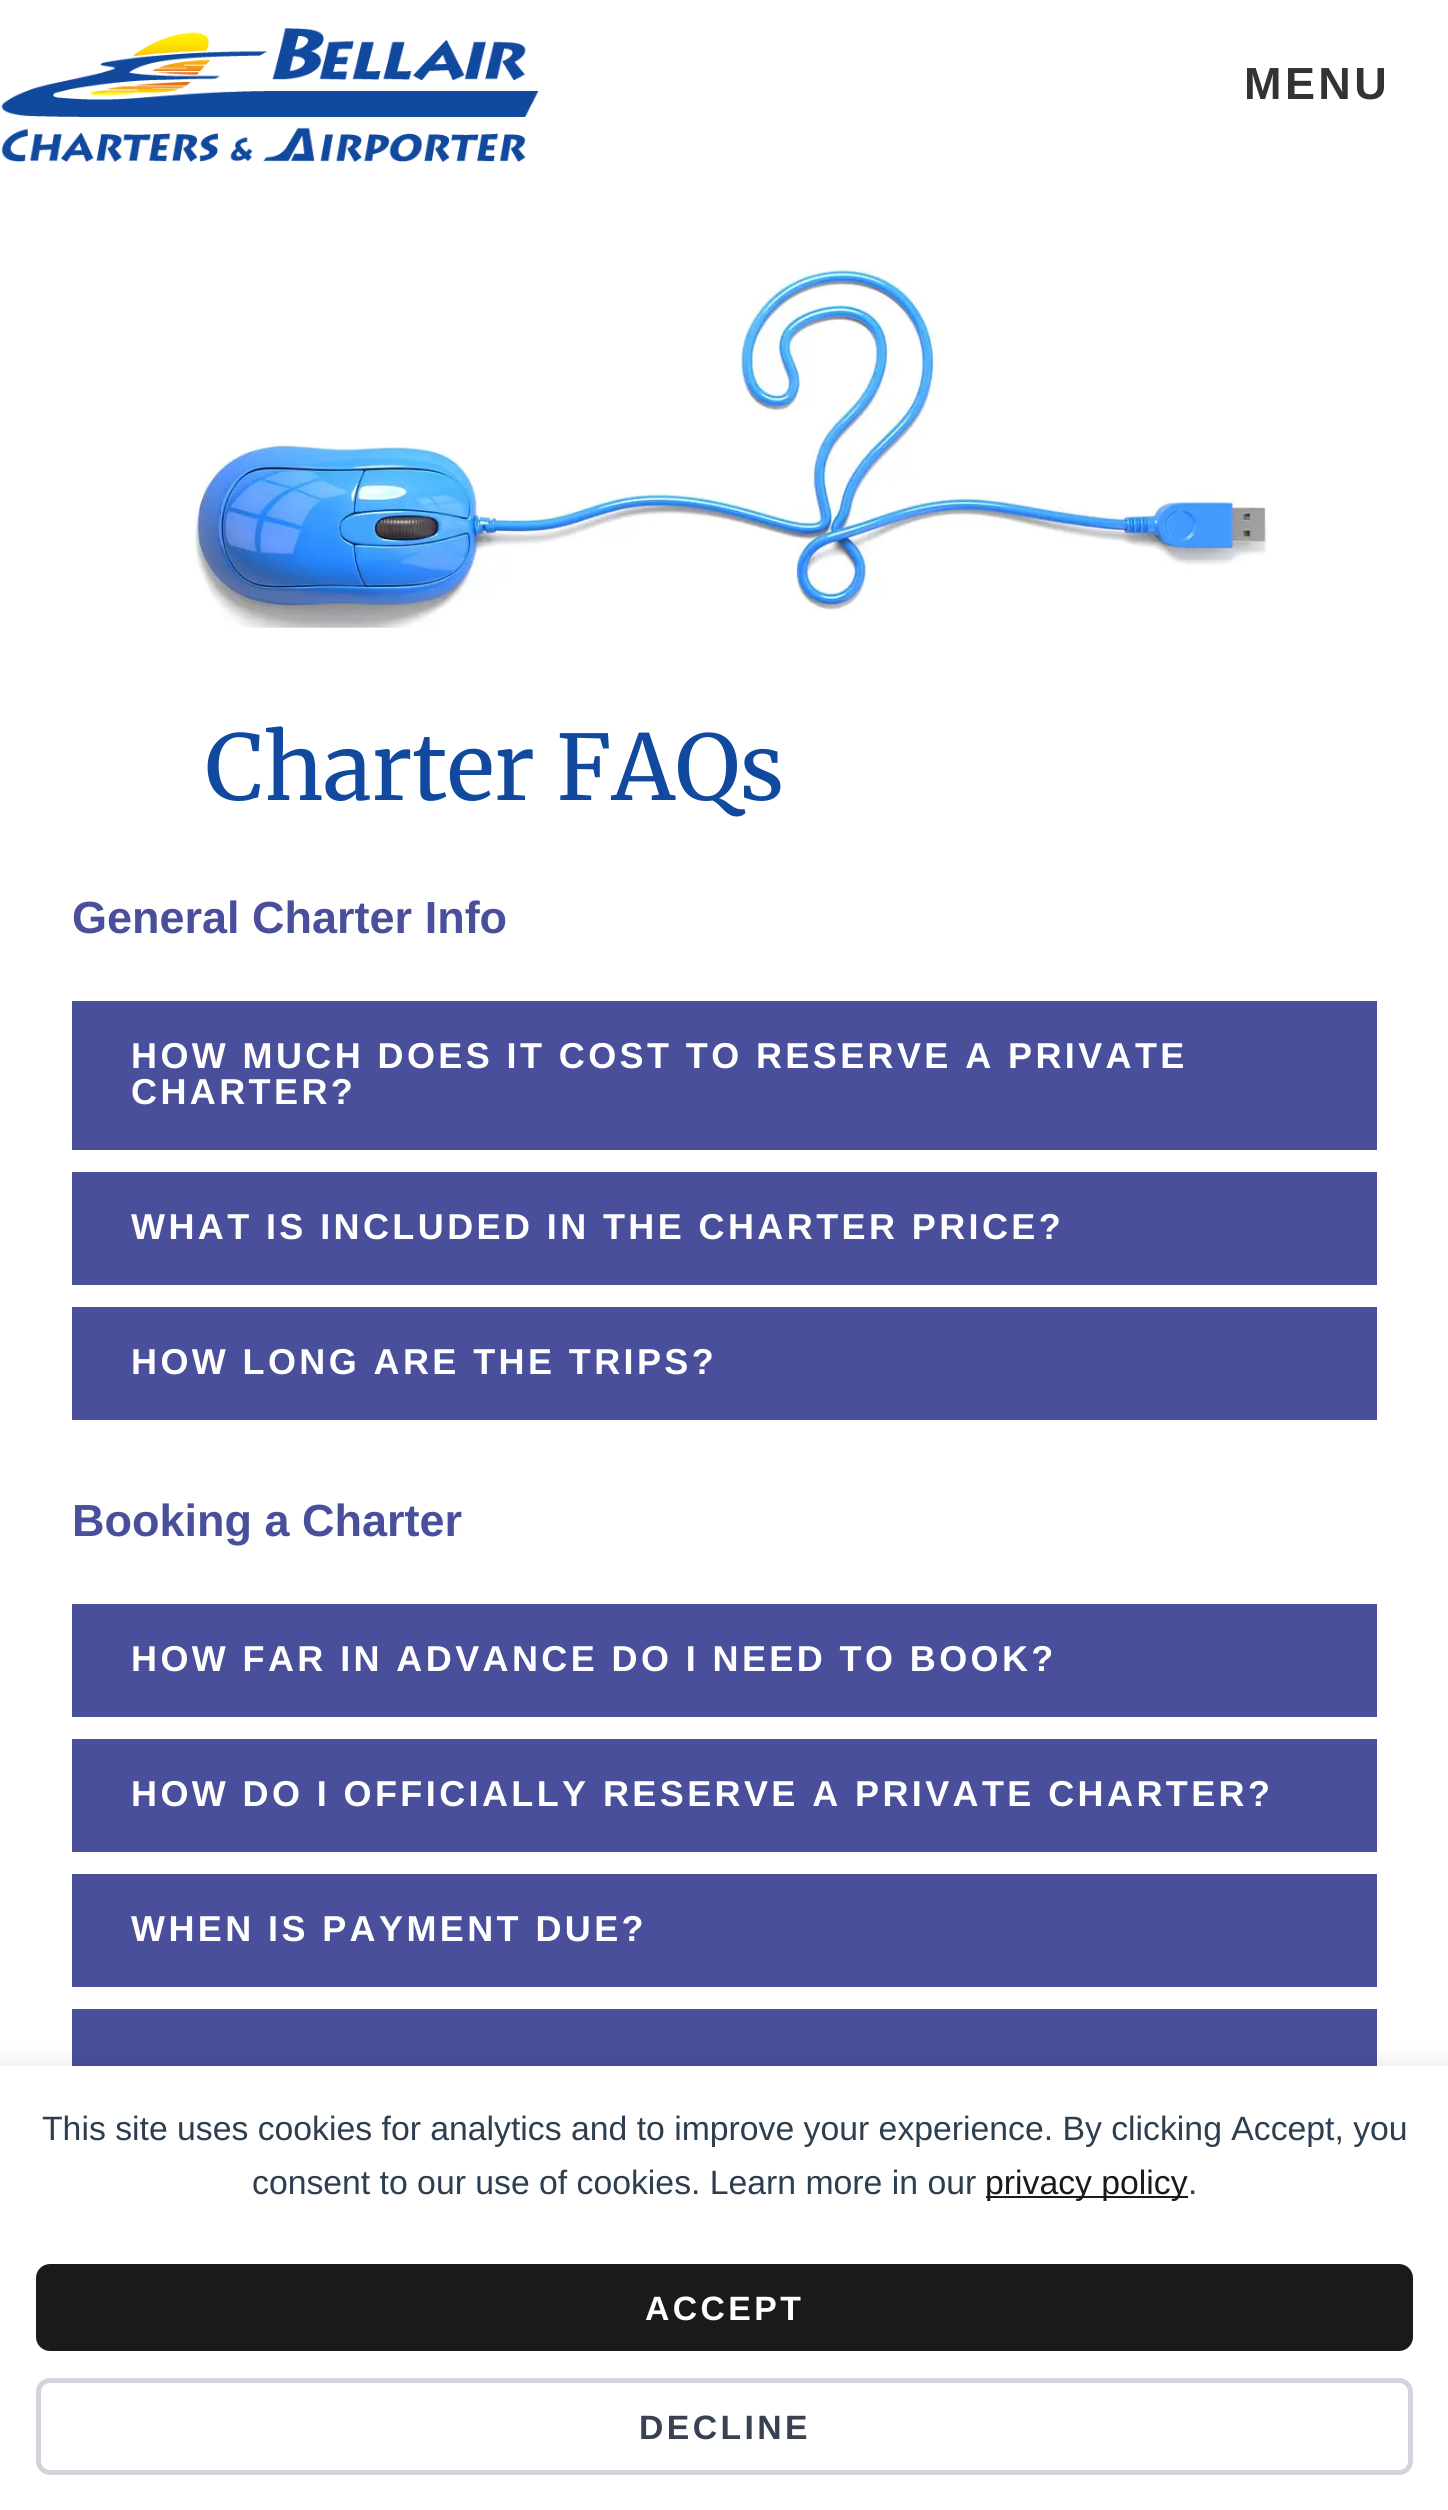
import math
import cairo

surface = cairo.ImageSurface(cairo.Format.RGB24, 1448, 2510)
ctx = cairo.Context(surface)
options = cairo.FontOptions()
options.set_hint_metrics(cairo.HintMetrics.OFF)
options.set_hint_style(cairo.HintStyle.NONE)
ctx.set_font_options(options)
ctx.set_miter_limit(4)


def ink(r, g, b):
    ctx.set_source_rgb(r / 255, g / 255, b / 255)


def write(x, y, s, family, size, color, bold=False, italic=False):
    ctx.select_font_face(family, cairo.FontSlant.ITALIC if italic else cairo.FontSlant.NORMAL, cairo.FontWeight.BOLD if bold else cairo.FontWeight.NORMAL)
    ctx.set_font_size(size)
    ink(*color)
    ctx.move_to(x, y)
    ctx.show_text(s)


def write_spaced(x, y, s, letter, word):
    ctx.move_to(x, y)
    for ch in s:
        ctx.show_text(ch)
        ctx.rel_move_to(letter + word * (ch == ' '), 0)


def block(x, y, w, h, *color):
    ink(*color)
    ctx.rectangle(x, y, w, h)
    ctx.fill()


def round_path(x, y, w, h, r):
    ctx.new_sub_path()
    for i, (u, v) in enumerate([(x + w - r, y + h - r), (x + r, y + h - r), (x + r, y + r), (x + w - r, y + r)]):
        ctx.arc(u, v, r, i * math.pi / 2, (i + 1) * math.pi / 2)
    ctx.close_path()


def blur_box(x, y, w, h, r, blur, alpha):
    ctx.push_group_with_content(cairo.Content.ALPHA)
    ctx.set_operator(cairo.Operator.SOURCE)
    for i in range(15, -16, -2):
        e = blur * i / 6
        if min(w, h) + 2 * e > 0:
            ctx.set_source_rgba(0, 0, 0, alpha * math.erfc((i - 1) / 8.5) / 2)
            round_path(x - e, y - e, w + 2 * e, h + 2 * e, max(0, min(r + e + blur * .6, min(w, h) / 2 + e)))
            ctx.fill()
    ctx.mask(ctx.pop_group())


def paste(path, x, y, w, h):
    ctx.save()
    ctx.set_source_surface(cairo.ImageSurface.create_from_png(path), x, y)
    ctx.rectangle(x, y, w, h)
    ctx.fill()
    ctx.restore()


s1 = dict(family="Merriweather", size=90, color=(16, 73, 158))
s2 = dict(family="Liberation Sans", size=45, color=(74, 79, 155), bold=True)
s3 = dict(family="Liberation Sans", size=33.75, color=(44, 62, 80))
s4 = dict(family="Liberation Sans", size=33.75, color=(26, 26, 26))

ink(255, 255, 255)
ctx.paint()
paste("pic1.png", 1, 28, 538, 134)
ctx.select_font_face("Liberation Sans", cairo.FontSlant.NORMAL, cairo.FontWeight.BOLD)
ctx.set_font_size(45)
ink(51, 51, 51)
write_spaced(1244, 99, "MENU", 3.4, 0)
paste("pic2.png", 194, 269, 1074, 359)
write(205, 800, "Charter FAQs", **s1)
write(72, 933, "General Charter Info", **s2)
block(72, 1001, 1305, 149, 74, 79, 155)
ctx.set_font_size(36)
ink(255, 255, 255)
write_spaced(131, 1068, "HOW MUCH DOES IT COST TO RESERVE A PRIVATE", 3.4, 0)
write_spaced(131, 1104, "CHARTER?", 3.4, 0)
block(72, 1172, 1305, 113, 74, 79, 155)
ink(255, 255, 255)
write_spaced(131, 1239, "WHAT IS INCLUDED IN THE CHARTER PRICE?", 3.4, 0)
block(72, 1307, 1305, 113, 74, 79, 155)
ink(255, 255, 255)
write_spaced(131, 1374, "HOW LONG ARE THE TRIPS?", 3.4, 0)
write(72, 1536, "Booking a Charter", **s2)
block(72, 1604, 1305, 113, 74, 79, 155)
ctx.set_font_size(36)
ink(255, 255, 255)
write_spaced(131, 1671, "HOW FAR IN ADVANCE DO I NEED TO BOOK?", 3.4, 0)
block(72, 1739, 1305, 113, 74, 79, 155)
ink(255, 255, 255)
write_spaced(131, 1806, "HOW DO I OFFICIALLY RESERVE A PRIVATE CHARTER?", 3.4, 0)
block(72, 1874, 1305, 113, 74, 79, 155)
ink(255, 255, 255)
write_spaced(131, 1941, "WHEN IS PAYMENT DUE?", 3.4, 0)
block(72, 2009, 1305, 57, 74, 79, 155)
ink(0, 0, 0)
blur_box(0, 2061, 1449, 446, 0, 11, 0.08)
block(0, 2066, 1448, 444, 255, 255, 255)
write(42, 2140, "This site uses cookies for analytics and to improve your experience. By clicking Accept, you", **s3)
write(252, 2194, "consent to our use of cookies. Learn more in our", **s3)
block(986, 2196, 202, 2, 26, 26, 26)
write(985, 2194, "privacy policy", **s4)
write(1188, 2194, ".", **s3)
ink(26, 26, 26)
round_path(36, 2264, 1377, 87, 14)
ctx.fill()
ctx.select_font_face("Liberation Sans", cairo.FontSlant.NORMAL, cairo.FontWeight.BOLD)
ink(255, 255, 255)
write_spaced(645, 2320, "ACCEPT", 3.4, 0)
round_path(38.5, 2380.5, 1372, 92, 11.5)
ink(209, 213, 219)
ctx.set_line_width(5)
ctx.stroke()
ink(55, 65, 81)
write_spaced(639, 2439, "DECLINE", 3.4, 0)
surface.write_to_png("screenshot.png")
